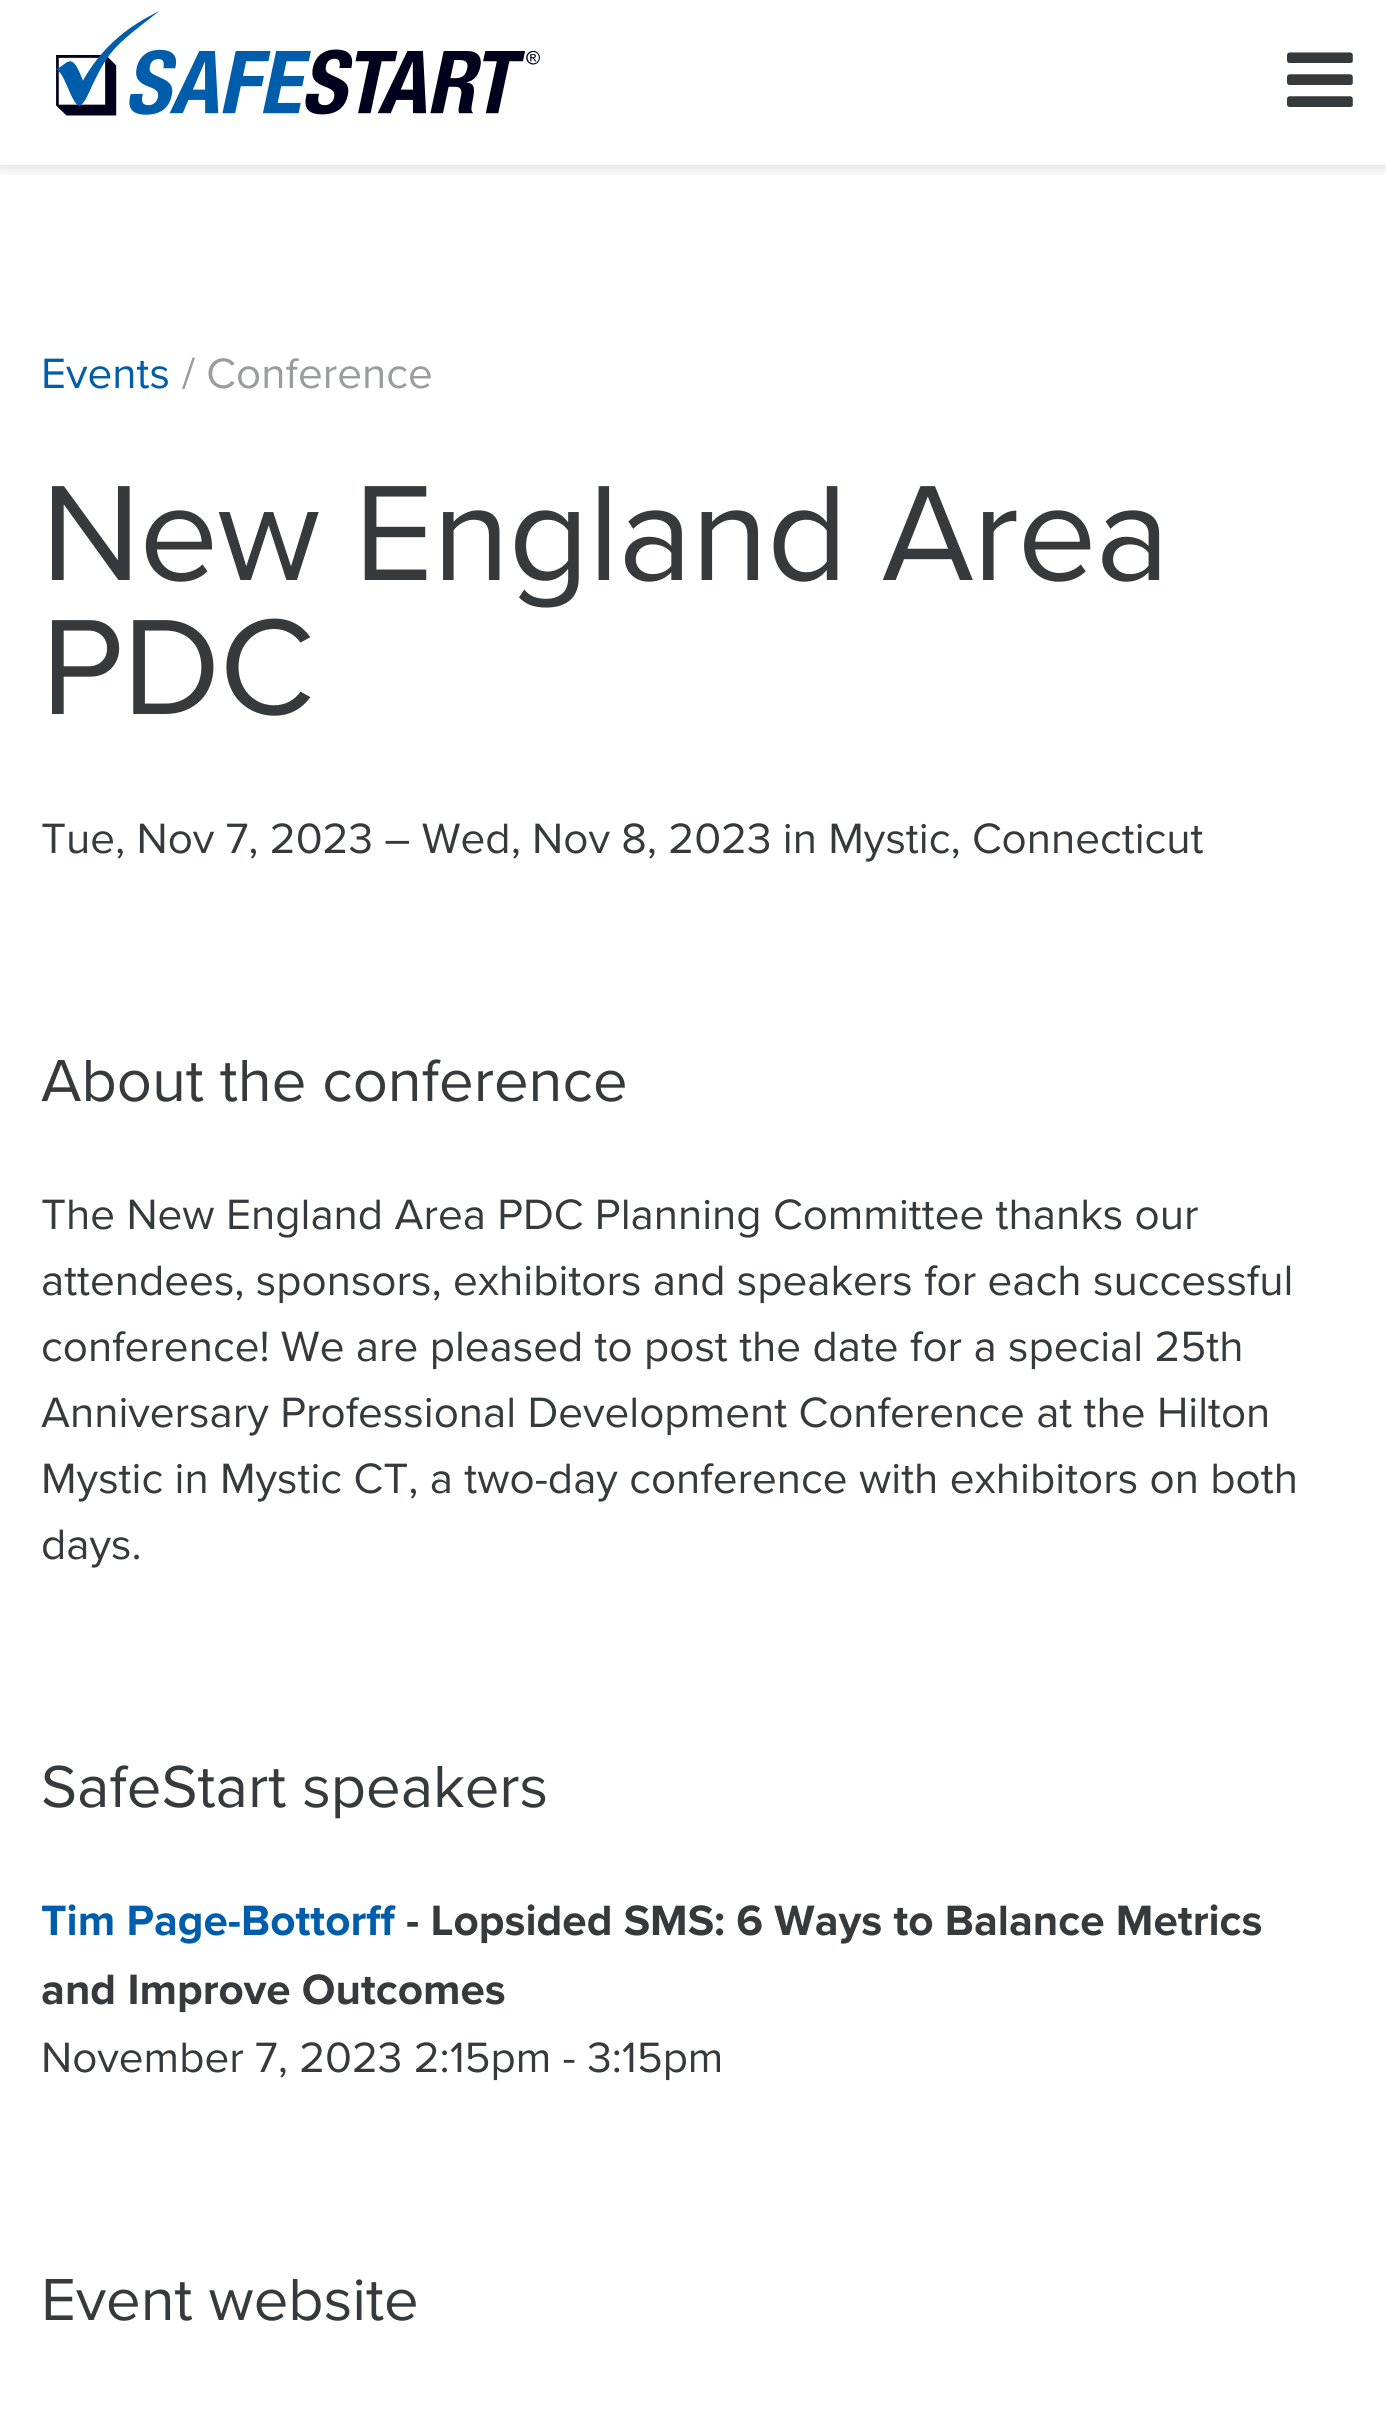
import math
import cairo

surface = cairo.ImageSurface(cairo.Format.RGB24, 1386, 2436)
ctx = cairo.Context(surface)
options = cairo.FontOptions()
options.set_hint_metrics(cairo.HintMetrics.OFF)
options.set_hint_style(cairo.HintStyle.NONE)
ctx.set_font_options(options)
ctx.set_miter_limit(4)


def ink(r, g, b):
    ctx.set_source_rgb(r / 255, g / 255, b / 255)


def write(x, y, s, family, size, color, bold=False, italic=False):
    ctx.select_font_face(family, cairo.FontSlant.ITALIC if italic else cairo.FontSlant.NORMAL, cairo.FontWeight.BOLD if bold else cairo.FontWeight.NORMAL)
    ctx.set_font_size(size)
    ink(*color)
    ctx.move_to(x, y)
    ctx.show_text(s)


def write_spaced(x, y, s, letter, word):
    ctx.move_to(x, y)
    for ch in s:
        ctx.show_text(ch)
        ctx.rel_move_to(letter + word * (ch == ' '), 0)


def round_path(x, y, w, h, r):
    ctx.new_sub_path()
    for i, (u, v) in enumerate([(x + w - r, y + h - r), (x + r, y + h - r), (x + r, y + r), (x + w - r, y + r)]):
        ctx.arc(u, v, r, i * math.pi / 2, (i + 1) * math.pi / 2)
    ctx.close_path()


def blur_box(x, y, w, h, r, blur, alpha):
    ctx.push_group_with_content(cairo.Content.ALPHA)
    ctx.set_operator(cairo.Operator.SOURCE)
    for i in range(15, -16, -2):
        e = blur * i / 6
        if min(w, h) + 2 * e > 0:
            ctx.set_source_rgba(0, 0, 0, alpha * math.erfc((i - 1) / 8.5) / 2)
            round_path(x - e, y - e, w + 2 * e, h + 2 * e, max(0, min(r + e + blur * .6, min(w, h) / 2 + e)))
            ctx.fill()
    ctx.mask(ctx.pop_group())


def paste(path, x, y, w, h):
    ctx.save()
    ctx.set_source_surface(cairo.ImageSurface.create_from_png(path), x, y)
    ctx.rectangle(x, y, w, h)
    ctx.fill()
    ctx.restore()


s1 = dict(family="Proxima Nova", size=44, color=(0, 93, 171))
s2 = dict(family="Proxima Nova", size=44, color=(155, 156, 157))
s3 = dict(family="Proxima Nova", size=44, color=(55, 58, 60))
s4 = dict(family="Proxima Nova", size=61.5, color=(55, 58, 60))
s5 = dict(family="Proxima Nova", size=44, color=(0, 93, 171), bold=True)
s6 = dict(family="Proxima Nova", size=44, color=(55, 58, 60), bold=True)

ink(255, 255, 255)
ctx.paint()
ctx.save()
ctx.rectangle(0, 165, 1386, 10)
ctx.clip()
ink(0, 0, 0)
blur_box(0, 0, 1386, 165, 0, 8, 0.2)
ctx.restore()
paste("pic1.png", 56, 11, 484, 105)
paste("pic2.png", 1287, 52, 66, 55)
write(41, 388, "Events", **s1)
write(182, 388, "/ Conference", **s2)
ctx.set_font_size(140.75)
ink(55, 58, 60)
write_spaced(41, 580, "New England Area", -1.4, 0)
write_spaced(41, 714, "PDC", -1.4, 0)
write(41, 853, "Tue, Nov 7, 2023 – Wed, Nov 8, 2023 in Mystic, Connecticut", **s3)
write(41, 1101, "About the conference", **s4)
write(41, 1229, "The New England Area PDC Planning Committee thanks our", **s3)
write(41, 1295, "attendees, sponsors, exhibitors and speakers for each successful", **s3)
write(41, 1361, "conference! We are pleased to post the date for a special 25th", **s3)
write(41, 1427, "Anniversary Professional Development Conference at the Hilton", **s3)
write(41, 1493, "Mystic in Mystic CT, a two-day conference with exhibitors on both", **s3)
write(41, 1559, "days.", **s3)
write(41, 1807, "SafeStart speakers", **s4)
write(41, 1935, "Tim Page-Bottorff", **s5)
write(406, 1935, "- Lopsided SMS: 6 Ways to Balance Metrics", **s6)
write(41, 2004, "and Improve Outcomes", **s6)
write(41, 2072, "November 7, 2023 2:15pm - 3:15pm", **s3)
write(41, 2320, "Event website", **s4)
surface.write_to_png("screenshot.png")
